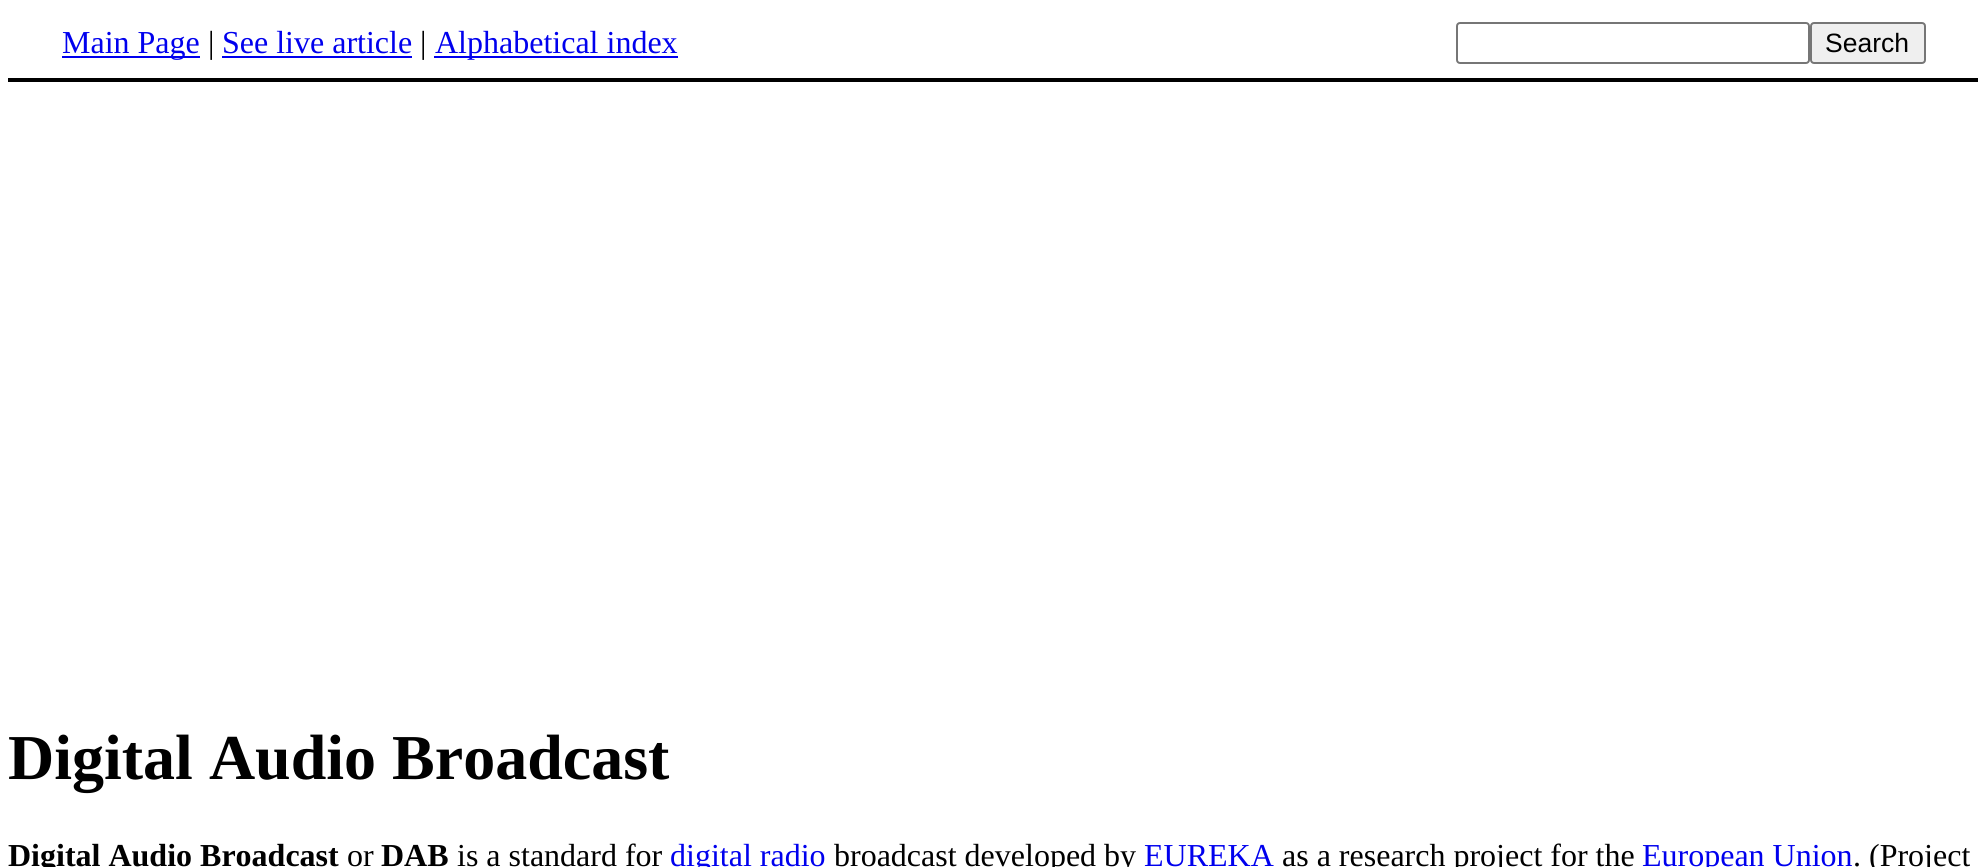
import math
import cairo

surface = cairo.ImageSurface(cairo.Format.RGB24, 1986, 867)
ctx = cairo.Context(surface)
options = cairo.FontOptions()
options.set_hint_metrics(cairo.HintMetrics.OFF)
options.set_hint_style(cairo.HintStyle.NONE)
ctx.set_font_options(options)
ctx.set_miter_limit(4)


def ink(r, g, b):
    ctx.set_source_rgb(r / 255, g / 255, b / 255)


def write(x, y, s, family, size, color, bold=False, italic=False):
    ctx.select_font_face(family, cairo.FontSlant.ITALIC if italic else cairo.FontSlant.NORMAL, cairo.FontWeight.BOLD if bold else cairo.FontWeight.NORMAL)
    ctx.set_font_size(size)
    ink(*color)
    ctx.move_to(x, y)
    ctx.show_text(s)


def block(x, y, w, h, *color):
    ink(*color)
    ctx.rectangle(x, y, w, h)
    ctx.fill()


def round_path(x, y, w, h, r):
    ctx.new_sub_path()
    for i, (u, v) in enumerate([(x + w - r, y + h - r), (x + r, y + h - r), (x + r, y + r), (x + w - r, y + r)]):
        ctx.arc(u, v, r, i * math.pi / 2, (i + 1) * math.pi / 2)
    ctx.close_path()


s1 = dict(family="Liberation Serif", size=32, color=(0, 0, 238))
s2 = dict(family="Liberation Serif", size=32, color=(0, 0, 0))
s3 = dict(family="Liberation Sans", size=26.5, color=(0, 0, 0))
s4 = dict(family="Liberation Serif", size=64, color=(0, 0, 0), bold=True)
s5 = dict(family="Liberation Serif", size=32, color=(0, 0, 0), bold=True)

ink(255, 255, 255)
ctx.paint()
block(8, 78, 1970, 4, 0, 0, 0)
block(62, 56, 138, 2, 0, 0, 238)
write(62, 53, "Main Page", **s1)
write(208, 53, "|", **s2)
write(222, 53, "See live article", **s1)
block(222, 56, 190, 2, 0, 0, 238)
write(420, 53, "|", **s2)
block(434, 56, 244, 2, 0, 0, 238)
write(435, 53, "Alphabetical index", **s1)
round_path(1457, 23, 352, 40, 3)
ink(118, 118, 118)
ctx.stroke()
ink(239, 239, 239)
round_path(1811, 23, 114, 40, 3)
ctx.fill_preserve()
ink(118, 118, 118)
ctx.stroke()
write(1825, 52, "Search", **s3)
write(8, 779, "Digital Audio Broadcast", **s4)
write(8, 866, "Digital Audio Broadcast", **s5)
write(347, 866, "or", **s2)
write(381, 866, "DAB", **s5)
write(457, 866, "is a standard for", **s2)
write(670, 866, "digital radio", **s1)
write(834, 866, "broadcast developed by", **s2)
write(1144, 866, "EUREKA", **s1)
write(1282, 866, "as a research project for the", **s2)
write(1642, 866, "European Union", **s1)
write(1853, 866, ". (Project", **s2)
surface.write_to_png("screenshot.png")
